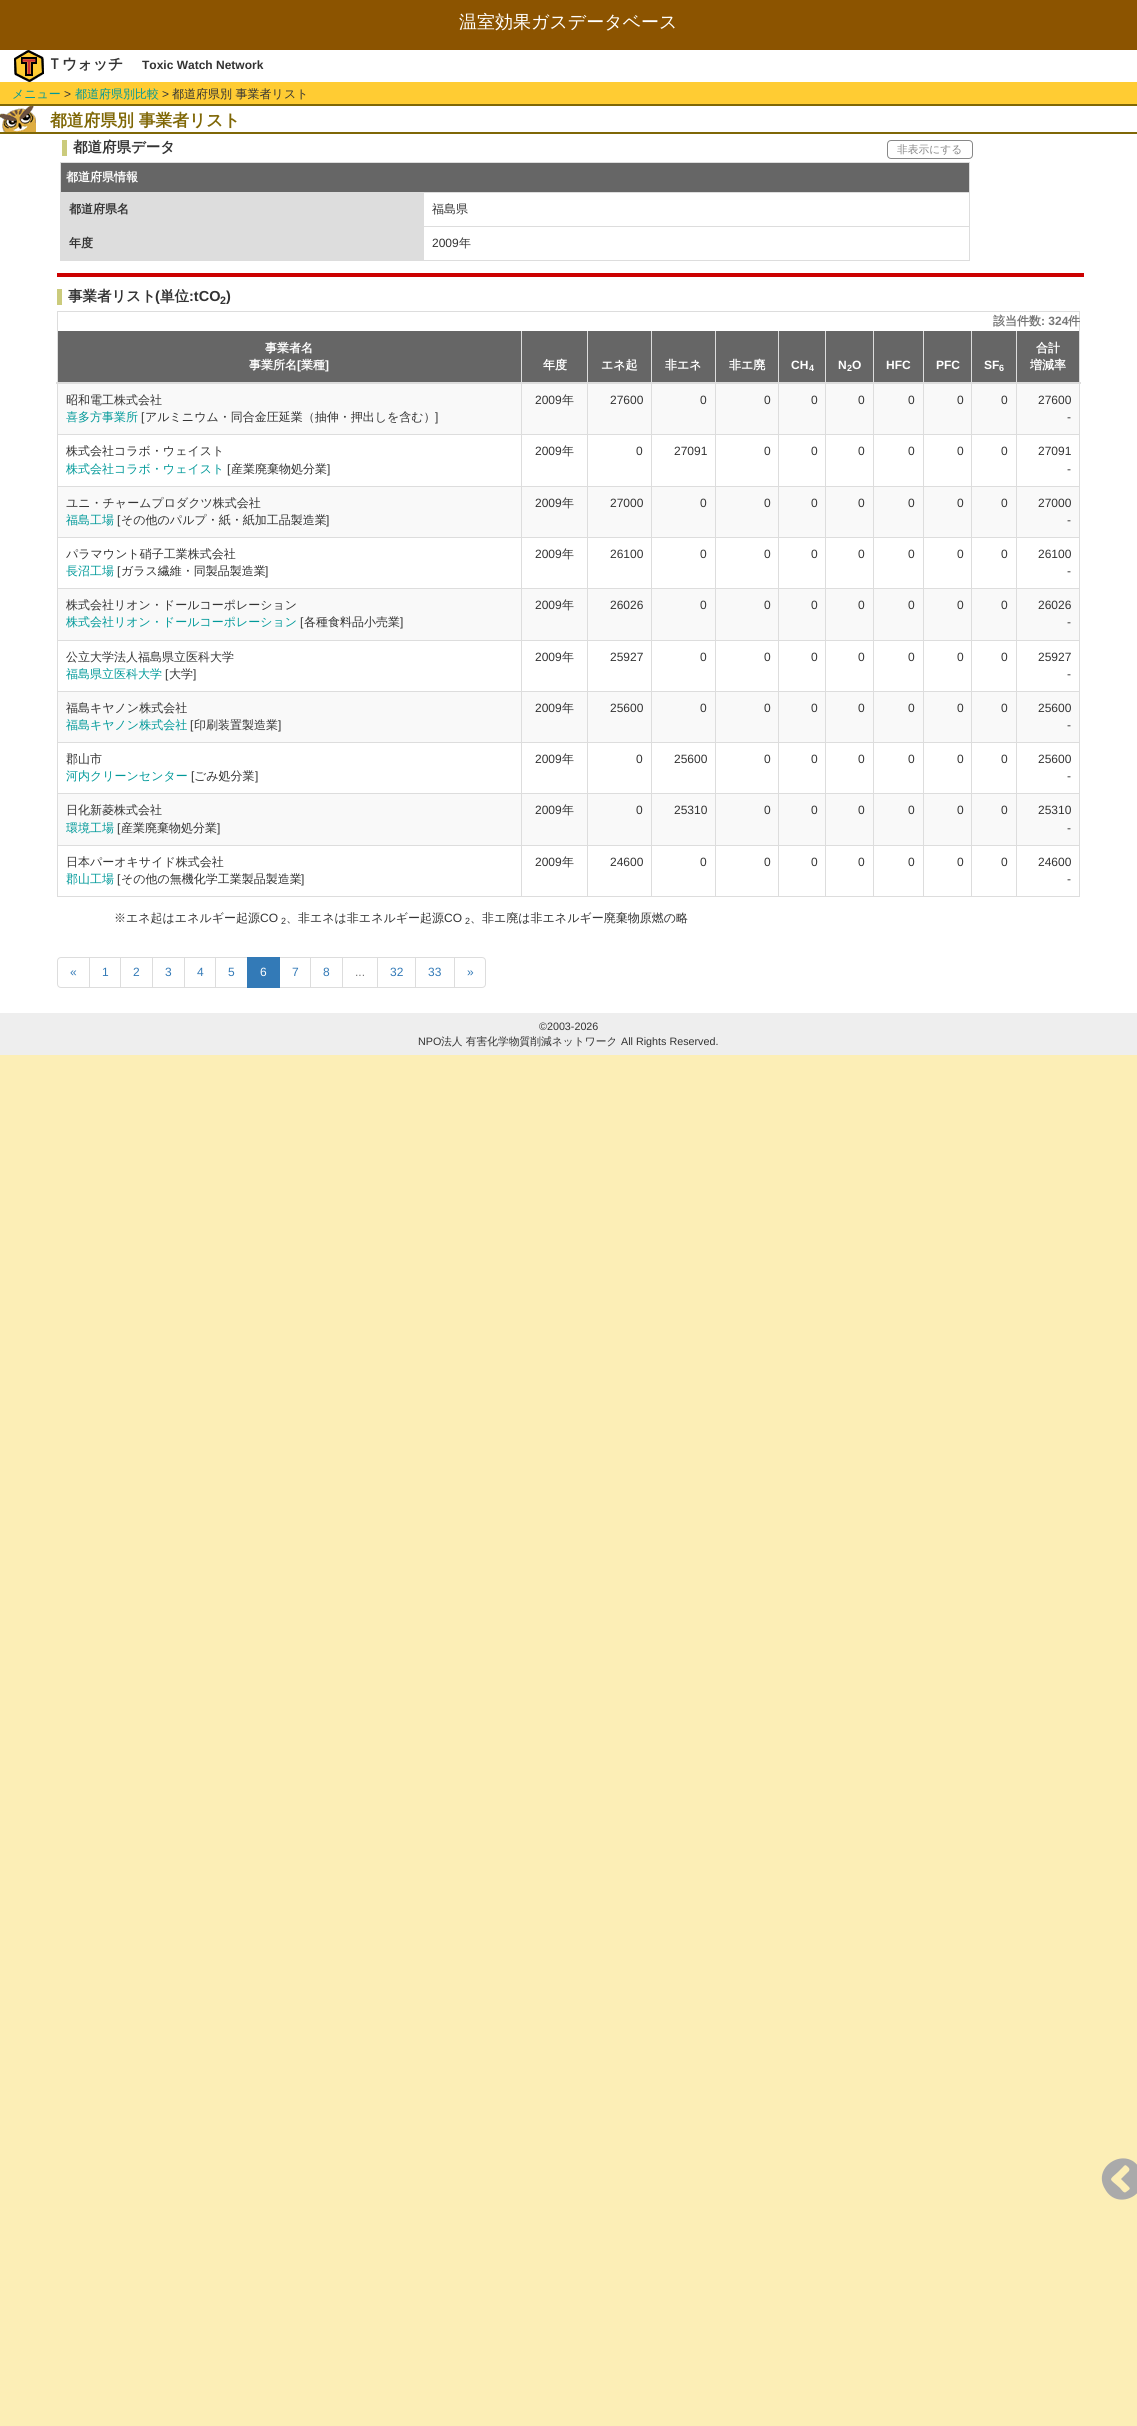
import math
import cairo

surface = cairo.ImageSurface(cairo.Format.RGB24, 1137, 2426)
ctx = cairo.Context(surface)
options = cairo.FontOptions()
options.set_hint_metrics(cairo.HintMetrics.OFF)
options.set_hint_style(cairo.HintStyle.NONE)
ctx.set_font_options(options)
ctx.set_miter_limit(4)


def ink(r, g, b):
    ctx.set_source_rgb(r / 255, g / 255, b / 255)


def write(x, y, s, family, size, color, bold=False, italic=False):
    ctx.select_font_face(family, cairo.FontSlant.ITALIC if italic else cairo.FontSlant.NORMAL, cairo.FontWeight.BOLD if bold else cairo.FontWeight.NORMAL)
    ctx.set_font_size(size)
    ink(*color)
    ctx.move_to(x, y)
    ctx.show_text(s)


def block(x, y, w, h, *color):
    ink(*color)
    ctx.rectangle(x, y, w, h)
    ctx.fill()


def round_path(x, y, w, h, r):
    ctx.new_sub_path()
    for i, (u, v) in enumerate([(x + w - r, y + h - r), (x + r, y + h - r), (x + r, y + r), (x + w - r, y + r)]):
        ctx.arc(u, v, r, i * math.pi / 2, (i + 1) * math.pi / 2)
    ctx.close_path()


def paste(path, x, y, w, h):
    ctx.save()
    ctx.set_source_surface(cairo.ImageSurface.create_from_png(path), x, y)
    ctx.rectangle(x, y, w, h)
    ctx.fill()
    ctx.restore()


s1 = dict(family="WenQuanYi Zen Hei Medium", size=18, color=(255, 255, 255))
s2 = dict(family="WenQuanYi Zen Hei", size=15, color=(51, 51, 51), bold=True)
s3 = dict(family="Liberation Sans", size=12, color=(51, 51, 51), bold=True)
s4 = dict(family="WenQuanYi Zen Hei Medium", size=12, color=(0, 153, 153))
s5 = dict(family="Liberation Sans", size=12, color=(51, 51, 51))
s6 = dict(family="WenQuanYi Zen Hei Medium", size=12, color=(51, 51, 51))
s7 = dict(family="WenQuanYi Zen Hei", size=16.75, color=(127, 103, 6), bold=True)
s8 = dict(family="WenQuanYi Zen Hei", size=14.5, color=(51, 51, 51), bold=True)
s9 = dict(family="WenQuanYi Zen Hei Medium", size=10.75, color=(136, 136, 136))
s10 = dict(family="WenQuanYi Zen Hei", size=12, color=(255, 255, 255), bold=True)
s11 = dict(family="WenQuanYi Zen Hei", size=12, color=(51, 51, 51), bold=True)
s12 = dict(family="Liberation Sans", size=14.5, color=(51, 51, 51), bold=True)
s13 = dict(family="Liberation Sans", size=10.75, color=(51, 51, 51), bold=True)
s14 = dict(family="WenQuanYi Zen Hei", size=12, color=(119, 119, 119), bold=True)
s15 = dict(family="Liberation Sans", size=12, color=(119, 119, 119), bold=True)
s16 = dict(family="Liberation Sans", size=12, color=(255, 255, 255), bold=True)
s17 = dict(family="Liberation Sans", size=9, color=(255, 255, 255), bold=True)
s18 = dict(family="Liberation Sans", size=9, color=(51, 51, 51))
s19 = dict(family="Liberation Sans", size=12, color=(51, 122, 183))
s20 = dict(family="Liberation Sans", size=12, color=(255, 255, 255))
s21 = dict(family="Liberation Sans", size=12, color=(119, 119, 119))
s22 = dict(family="Liberation Sans", size=10.75, color=(51, 51, 51))
s23 = dict(family="WenQuanYi Zen Hei Medium", size=10.75, color=(51, 51, 51))

ink(252, 238, 182)
ctx.paint()
block(0, 50, 1137, 963, 255, 255, 255)
block(0, 0, 1137, 50, 140, 84, 0)
write(459, 28, "温室効果ガスデータベース", **s1)
paste("pic1.png", 14, 50, 30, 32)
write(47, 69, "Ｔウォッチ", **s2)
write(142, 69, "Toxic Watch Network", **s3)
block(0, 82, 1137, 22, 255, 204, 51)
write(12, 98, "メニュー", **s4)
write(64, 98, ">", **s5)
write(75, 98, "都道府県別比較", **s4)
write(162, 98, ">", **s5)
write(172, 98, "都道府県別 事業者リスト", **s6)
paste("pic2.png", 0, 106, 36, 26)
block(0, 104, 1137, 2, 127, 103, 6)
block(0, 132, 1137, 2, 127, 103, 6)
write(50, 126, "都道府県別 事業者リスト", **s7)
block(62, 140, 5, 16, 203, 203, 124)
write(73, 152, "都道府県データ", **s8)
round_path(887.5, 140.5, 85, 18, 3.5)
ink(136, 136, 136)
ctx.set_line_width(1)
ctx.stroke()
write(897, 153, "非表示にする", **s9)
block(60, 162, 910, 1, 221, 221, 221)
block(969, 162, 1, 99, 221, 221, 221)
block(60, 260, 910, 1, 221, 221, 221)
block(60, 162, 1, 99, 221, 221, 221)
block(61, 163, 908, 29, 102, 102, 102)
write(66, 181, "都道府県情報", **s10)
block(61, 192, 363, 68, 221, 221, 221)
write(69, 213, "都道府県名", **s11)
block(423, 192, 547, 1, 221, 221, 221)
write(432, 213, "福島県", **s6)
write(69, 247, "年度", **s11)
block(423, 226, 547, 1, 221, 221, 221)
write(432, 247, "2009", **s5)
write(459, 247, "年", **s6)
block(57, 273, 1027, 4, 204, 0, 0)
block(57, 289, 5, 16, 203, 203, 124)
write(68, 301, "事業者リスト", **s8)
write(155, 301, "(", **s12)
write(160, 301, "単位", **s8)
write(189, 301, ":tCO", **s12)
write(226, 301, ")", **s12)
write(220, 304, "2", **s13)
block(57, 311, 1023, 1, 221, 221, 221)
block(1079, 311, 1, 586, 221, 221, 221)
block(57, 896, 1023, 1, 221, 221, 221)
block(57, 311, 1, 586, 221, 221, 221)
write(993, 325, "該当件数", **s14)
write(1041, 325, ": 324", **s15)
write(1068, 325, "件", **s14)
block(58, 331, 463, 51, 102, 102, 102)
write(265, 352, "事業者名", **s10)
write(249, 369, "事業所名", **s10)
write(297, 369, "[", **s16)
write(301, 369, "業種", **s10)
write(325, 369, "]", **s16)
block(522, 331, 65, 51, 102, 102, 102)
write(543, 369, "年度", **s10)
block(588, 331, 63, 51, 102, 102, 102)
write(601, 369, "エネ起", **s10)
block(652, 331, 63, 51, 102, 102, 102)
write(665, 369, "非エネ", **s10)
block(716, 331, 62, 51, 102, 102, 102)
write(729, 369, "非エ廃", **s10)
block(779, 331, 46, 51, 102, 102, 102)
write(791, 369, "CH", **s16)
write(809, 371, "4", **s17)
block(826, 331, 47, 51, 102, 102, 102)
write(838, 369, "N", **s16)
write(847, 371, "2", **s17)
write(852, 369, "O", **s16)
block(874, 331, 49, 51, 102, 102, 102)
write(886, 369, "HFC", **s16)
block(924, 331, 47, 51, 102, 102, 102)
write(936, 369, "PFC", **s16)
block(972, 331, 44, 51, 102, 102, 102)
write(984, 369, "SF", **s16)
write(999, 371, "6", **s17)
block(1017, 331, 62, 51, 102, 102, 102)
block(58, 384, 1021, 50, 249, 249, 249)
block(1016, 434, 64, 1, 221, 221, 221)
block(1016, 486, 64, 1, 221, 221, 221)
block(58, 487, 1021, 50, 249, 249, 249)
block(1016, 537, 64, 1, 221, 221, 221)
block(1016, 588, 64, 1, 221, 221, 221)
block(58, 589, 1021, 51, 249, 249, 249)
block(1016, 640, 64, 1, 221, 221, 221)
block(1016, 691, 64, 1, 221, 221, 221)
block(58, 692, 1021, 50, 249, 249, 249)
block(1016, 742, 64, 1, 221, 221, 221)
block(1016, 793, 64, 1, 221, 221, 221)
block(58, 794, 1021, 51, 249, 249, 249)
block(1016, 845, 64, 1, 221, 221, 221)
block(1016, 845, 1, 52, 221, 221, 221)
block(971, 845, 46, 1, 221, 221, 221)
block(1016, 793, 1, 53, 221, 221, 221)
block(971, 793, 46, 1, 221, 221, 221)
block(1016, 742, 1, 52, 221, 221, 221)
block(971, 742, 46, 1, 221, 221, 221)
block(1016, 691, 1, 52, 221, 221, 221)
block(971, 691, 46, 1, 221, 221, 221)
block(1016, 640, 1, 52, 221, 221, 221)
block(971, 640, 46, 1, 221, 221, 221)
block(1016, 588, 1, 53, 221, 221, 221)
block(971, 588, 46, 1, 221, 221, 221)
block(1016, 537, 1, 52, 221, 221, 221)
block(971, 537, 46, 1, 221, 221, 221)
block(1016, 486, 1, 52, 221, 221, 221)
block(971, 486, 46, 1, 221, 221, 221)
block(1016, 434, 1, 53, 221, 221, 221)
block(971, 434, 46, 1, 221, 221, 221)
block(971, 845, 1, 52, 221, 221, 221)
block(923, 845, 49, 1, 221, 221, 221)
block(971, 793, 1, 53, 221, 221, 221)
block(923, 793, 49, 1, 221, 221, 221)
block(971, 742, 1, 52, 221, 221, 221)
block(923, 742, 49, 1, 221, 221, 221)
block(971, 691, 1, 52, 221, 221, 221)
block(923, 691, 49, 1, 221, 221, 221)
block(971, 640, 1, 52, 221, 221, 221)
block(923, 640, 49, 1, 221, 221, 221)
block(971, 588, 1, 53, 221, 221, 221)
block(923, 588, 49, 1, 221, 221, 221)
block(971, 537, 1, 52, 221, 221, 221)
block(923, 537, 49, 1, 221, 221, 221)
block(971, 486, 1, 52, 221, 221, 221)
block(923, 486, 49, 1, 221, 221, 221)
block(971, 434, 1, 53, 221, 221, 221)
block(923, 434, 49, 1, 221, 221, 221)
block(923, 845, 1, 52, 221, 221, 221)
block(873, 845, 51, 1, 221, 221, 221)
block(923, 793, 1, 53, 221, 221, 221)
block(873, 793, 51, 1, 221, 221, 221)
block(923, 742, 1, 52, 221, 221, 221)
block(873, 742, 51, 1, 221, 221, 221)
block(923, 691, 1, 52, 221, 221, 221)
block(873, 691, 51, 1, 221, 221, 221)
block(923, 640, 1, 52, 221, 221, 221)
block(873, 640, 51, 1, 221, 221, 221)
block(923, 588, 1, 53, 221, 221, 221)
block(873, 588, 51, 1, 221, 221, 221)
block(923, 537, 1, 52, 221, 221, 221)
block(873, 537, 51, 1, 221, 221, 221)
block(923, 486, 1, 52, 221, 221, 221)
block(873, 486, 51, 1, 221, 221, 221)
block(923, 434, 1, 53, 221, 221, 221)
block(873, 434, 51, 1, 221, 221, 221)
block(873, 845, 1, 52, 221, 221, 221)
block(825, 845, 49, 1, 221, 221, 221)
block(873, 793, 1, 53, 221, 221, 221)
block(825, 793, 49, 1, 221, 221, 221)
block(873, 742, 1, 52, 221, 221, 221)
block(825, 742, 49, 1, 221, 221, 221)
block(873, 691, 1, 52, 221, 221, 221)
block(825, 691, 49, 1, 221, 221, 221)
block(873, 640, 1, 52, 221, 221, 221)
block(825, 640, 49, 1, 221, 221, 221)
block(873, 588, 1, 53, 221, 221, 221)
block(825, 588, 49, 1, 221, 221, 221)
block(873, 537, 1, 52, 221, 221, 221)
block(825, 537, 49, 1, 221, 221, 221)
block(873, 486, 1, 52, 221, 221, 221)
block(825, 486, 49, 1, 221, 221, 221)
block(873, 434, 1, 53, 221, 221, 221)
block(825, 434, 49, 1, 221, 221, 221)
block(825, 845, 1, 52, 221, 221, 221)
block(778, 845, 48, 1, 221, 221, 221)
block(825, 793, 1, 53, 221, 221, 221)
block(778, 793, 48, 1, 221, 221, 221)
block(825, 742, 1, 52, 221, 221, 221)
block(778, 742, 48, 1, 221, 221, 221)
block(825, 691, 1, 52, 221, 221, 221)
block(778, 691, 48, 1, 221, 221, 221)
block(825, 640, 1, 52, 221, 221, 221)
block(778, 640, 48, 1, 221, 221, 221)
block(825, 588, 1, 53, 221, 221, 221)
block(778, 588, 48, 1, 221, 221, 221)
block(825, 537, 1, 52, 221, 221, 221)
block(778, 537, 48, 1, 221, 221, 221)
block(825, 486, 1, 52, 221, 221, 221)
block(778, 486, 48, 1, 221, 221, 221)
block(825, 434, 1, 53, 221, 221, 221)
block(778, 434, 48, 1, 221, 221, 221)
block(778, 845, 1, 52, 221, 221, 221)
block(715, 845, 64, 1, 221, 221, 221)
block(778, 793, 1, 53, 221, 221, 221)
block(715, 793, 64, 1, 221, 221, 221)
block(778, 742, 1, 52, 221, 221, 221)
block(715, 742, 64, 1, 221, 221, 221)
block(778, 691, 1, 52, 221, 221, 221)
block(715, 691, 64, 1, 221, 221, 221)
block(778, 640, 1, 52, 221, 221, 221)
block(715, 640, 64, 1, 221, 221, 221)
block(778, 588, 1, 53, 221, 221, 221)
block(715, 588, 64, 1, 221, 221, 221)
block(778, 537, 1, 52, 221, 221, 221)
block(715, 537, 64, 1, 221, 221, 221)
block(778, 486, 1, 52, 221, 221, 221)
block(715, 486, 64, 1, 221, 221, 221)
block(778, 434, 1, 53, 221, 221, 221)
block(715, 434, 64, 1, 221, 221, 221)
block(715, 845, 1, 52, 221, 221, 221)
block(651, 845, 65, 1, 221, 221, 221)
block(715, 793, 1, 53, 221, 221, 221)
block(651, 793, 65, 1, 221, 221, 221)
block(715, 742, 1, 52, 221, 221, 221)
block(651, 742, 65, 1, 221, 221, 221)
block(715, 691, 1, 52, 221, 221, 221)
block(651, 691, 65, 1, 221, 221, 221)
block(715, 640, 1, 52, 221, 221, 221)
block(651, 640, 65, 1, 221, 221, 221)
block(715, 588, 1, 53, 221, 221, 221)
block(651, 588, 65, 1, 221, 221, 221)
block(715, 537, 1, 52, 221, 221, 221)
block(651, 537, 65, 1, 221, 221, 221)
block(715, 486, 1, 52, 221, 221, 221)
block(651, 486, 65, 1, 221, 221, 221)
block(715, 434, 1, 53, 221, 221, 221)
block(651, 434, 65, 1, 221, 221, 221)
block(651, 845, 1, 52, 221, 221, 221)
block(587, 845, 65, 1, 221, 221, 221)
block(651, 793, 1, 53, 221, 221, 221)
block(587, 793, 65, 1, 221, 221, 221)
block(651, 742, 1, 52, 221, 221, 221)
block(587, 742, 65, 1, 221, 221, 221)
block(651, 691, 1, 52, 221, 221, 221)
block(587, 691, 65, 1, 221, 221, 221)
block(651, 640, 1, 52, 221, 221, 221)
block(587, 640, 65, 1, 221, 221, 221)
block(651, 588, 1, 53, 221, 221, 221)
block(587, 588, 65, 1, 221, 221, 221)
block(651, 537, 1, 52, 221, 221, 221)
block(587, 537, 65, 1, 221, 221, 221)
block(651, 486, 1, 52, 221, 221, 221)
block(587, 486, 65, 1, 221, 221, 221)
block(651, 434, 1, 53, 221, 221, 221)
block(587, 434, 65, 1, 221, 221, 221)
block(587, 845, 1, 52, 221, 221, 221)
block(521, 845, 67, 1, 221, 221, 221)
block(587, 793, 1, 53, 221, 221, 221)
block(521, 793, 67, 1, 221, 221, 221)
block(587, 742, 1, 52, 221, 221, 221)
block(521, 742, 67, 1, 221, 221, 221)
block(587, 691, 1, 52, 221, 221, 221)
block(521, 691, 67, 1, 221, 221, 221)
block(587, 640, 1, 52, 221, 221, 221)
block(521, 640, 67, 1, 221, 221, 221)
block(587, 588, 1, 53, 221, 221, 221)
block(521, 588, 67, 1, 221, 221, 221)
block(587, 537, 1, 52, 221, 221, 221)
block(521, 537, 67, 1, 221, 221, 221)
block(587, 486, 1, 52, 221, 221, 221)
block(521, 486, 67, 1, 221, 221, 221)
block(587, 434, 1, 53, 221, 221, 221)
block(521, 434, 67, 1, 221, 221, 221)
block(521, 845, 1, 52, 221, 221, 221)
block(57, 845, 465, 1, 221, 221, 221)
block(521, 793, 1, 53, 221, 221, 221)
block(57, 793, 465, 1, 221, 221, 221)
block(521, 742, 1, 52, 221, 221, 221)
block(57, 742, 465, 1, 221, 221, 221)
block(521, 691, 1, 52, 221, 221, 221)
block(57, 691, 465, 1, 221, 221, 221)
block(521, 640, 1, 52, 221, 221, 221)
block(57, 640, 465, 1, 221, 221, 221)
block(521, 588, 1, 53, 221, 221, 221)
block(57, 588, 465, 1, 221, 221, 221)
block(521, 537, 1, 52, 221, 221, 221)
block(57, 537, 465, 1, 221, 221, 221)
block(521, 486, 1, 52, 221, 221, 221)
block(57, 486, 465, 1, 221, 221, 221)
block(521, 434, 1, 53, 221, 221, 221)
block(57, 434, 465, 1, 221, 221, 221)
block(521, 331, 1, 104, 221, 221, 221)
block(587, 331, 1, 104, 221, 221, 221)
block(651, 331, 1, 104, 221, 221, 221)
block(715, 331, 1, 104, 221, 221, 221)
block(778, 331, 1, 104, 221, 221, 221)
block(825, 331, 1, 104, 221, 221, 221)
block(873, 331, 1, 104, 221, 221, 221)
block(923, 331, 1, 104, 221, 221, 221)
block(971, 331, 1, 104, 221, 221, 221)
block(1016, 331, 1, 104, 221, 221, 221)
block(56, 382, 1025, 2, 221, 221, 221)
write(1036, 352, "合計", **s10)
write(1030, 369, "増減率", **s10)
write(66, 404, "昭和電工株式会社", **s6)
write(66, 421, "喜多方事業所", **s4)
write(141, 421, "[", **s5)
write(145, 421, "アルミニウム・同合金圧延業（抽伸・押出しを含む）", **s6)
write(435, 421, "]", **s5)
write(535, 404, "2009", **s5)
write(562, 404, "年", **s6)
write(610, 404, "27600", **s5)
write(700, 404, "0", **s5)
write(764, 404, "0", **s5)
write(811, 404, "0", **s5)
write(858, 404, "0", **s5)
write(908, 404, "0", **s5)
write(957, 404, "0", **s5)
write(1001, 404, "0", **s5)
write(1038, 404, "27600", **s5)
write(1067, 421, "-", **s5)
write(66, 455, "株式会社コラボ・ウェイスト", **s6)
write(66, 473, "株式会社コラボ・ウェイスト", **s4)
write(227, 473, "[", **s5)
write(231, 473, "産業廃棄物処分業", **s6)
write(327, 473, "]", **s5)
write(535, 455, "2009", **s5)
write(562, 455, "年", **s6)
write(636, 455, "0", **s5)
write(674, 455, "27091", **s5)
write(764, 455, "0", **s5)
write(811, 455, "0", **s5)
write(858, 455, "0", **s5)
write(908, 455, "0", **s5)
write(957, 455, "0", **s5)
write(1001, 455, "0", **s5)
write(1038, 455, "27091", **s5)
write(1067, 473, "-", **s5)
write(66, 507, "ユニ・チャームプロダクツ株式会社", **s6)
write(66, 524, "福島工場", **s4)
write(117, 524, "[", **s5)
write(121, 524, "その他のパルプ・紙・紙加工品製造業", **s6)
write(326, 524, "]", **s5)
write(535, 507, "2009", **s5)
write(562, 507, "年", **s6)
write(610, 507, "27000", **s5)
write(700, 507, "0", **s5)
write(764, 507, "0", **s5)
write(811, 507, "0", **s5)
write(858, 507, "0", **s5)
write(908, 507, "0", **s5)
write(957, 507, "0", **s5)
write(1001, 507, "0", **s5)
write(1038, 507, "27000", **s5)
write(1067, 524, "-", **s5)
write(66, 558, "パラマウント硝子工業株式会社", **s6)
write(66, 575, "長沼工場", **s4)
write(117, 575, "[", **s5)
write(121, 575, "ガラス繊維・同製品製造業", **s6)
write(265, 575, "]", **s5)
write(535, 558, "2009", **s5)
write(562, 558, "年", **s6)
write(610, 558, "26100", **s5)
write(700, 558, "0", **s5)
write(764, 558, "0", **s5)
write(811, 558, "0", **s5)
write(858, 558, "0", **s5)
write(908, 558, "0", **s5)
write(957, 558, "0", **s5)
write(1001, 558, "0", **s5)
write(1038, 558, "26100", **s5)
write(1067, 575, "-", **s5)
write(66, 609, "株式会社リオン・ドールコーポレーション", **s6)
write(66, 626, "株式会社リオン・ドールコーポレーション", **s4)
write(300, 626, "[", **s5)
write(304, 626, "各種食料品小売業", **s6)
write(400, 626, "]", **s5)
write(535, 609, "2009", **s5)
write(562, 609, "年", **s6)
write(610, 609, "26026", **s5)
write(700, 609, "0", **s5)
write(764, 609, "0", **s5)
write(811, 609, "0", **s5)
write(858, 609, "0", **s5)
write(908, 609, "0", **s5)
write(957, 609, "0", **s5)
write(1001, 609, "0", **s5)
write(1038, 609, "26026", **s5)
write(1067, 626, "-", **s5)
write(66, 661, "公立大学法人福島県立医科大学", **s6)
write(66, 678, "福島県立医科大学", **s4)
write(165, 678, "[", **s5)
write(169, 678, "大学", **s6)
write(193, 678, "]", **s5)
write(535, 661, "2009", **s5)
write(562, 661, "年", **s6)
write(610, 661, "25927", **s5)
write(700, 661, "0", **s5)
write(764, 661, "0", **s5)
write(811, 661, "0", **s5)
write(858, 661, "0", **s5)
write(908, 661, "0", **s5)
write(957, 661, "0", **s5)
write(1001, 661, "0", **s5)
write(1038, 661, "25927", **s5)
write(1067, 678, "-", **s5)
write(66, 712, "福島キヤノン株式会社", **s6)
write(66, 729, "福島キヤノン株式会社", **s4)
write(190, 729, "[", **s5)
write(194, 729, "印刷装置製造業", **s6)
write(278, 729, "]", **s5)
write(535, 712, "2009", **s5)
write(562, 712, "年", **s6)
write(610, 712, "25600", **s5)
write(700, 712, "0", **s5)
write(764, 712, "0", **s5)
write(811, 712, "0", **s5)
write(858, 712, "0", **s5)
write(908, 712, "0", **s5)
write(957, 712, "0", **s5)
write(1001, 712, "0", **s5)
write(1038, 712, "25600", **s5)
write(1067, 729, "-", **s5)
write(66, 763, "郡山市", **s6)
write(66, 780, "河内クリーンセンター", **s4)
write(191, 780, "[", **s5)
write(194, 780, "ごみ処分業", **s6)
write(255, 780, "]", **s5)
write(535, 763, "2009", **s5)
write(562, 763, "年", **s6)
write(636, 763, "0", **s5)
write(674, 763, "25600", **s5)
write(764, 763, "0", **s5)
write(811, 763, "0", **s5)
write(858, 763, "0", **s5)
write(908, 763, "0", **s5)
write(957, 763, "0", **s5)
write(1001, 763, "0", **s5)
write(1038, 763, "25600", **s5)
write(1067, 780, "-", **s5)
write(66, 814, "日化新菱株式会社", **s6)
write(66, 832, "環境工場", **s4)
write(117, 832, "[", **s5)
write(121, 832, "産業廃棄物処分業", **s6)
write(217, 832, "]", **s5)
write(535, 814, "2009", **s5)
write(562, 814, "年", **s6)
write(636, 814, "0", **s5)
write(674, 814, "25310", **s5)
write(764, 814, "0", **s5)
write(811, 814, "0", **s5)
write(858, 814, "0", **s5)
write(908, 814, "0", **s5)
write(957, 814, "0", **s5)
write(1001, 814, "0", **s5)
write(1038, 814, "25310", **s5)
write(1067, 832, "-", **s5)
write(66, 866, "日本パーオキサイド株式会社", **s6)
write(66, 883, "郡山工場", **s4)
write(117, 883, "[", **s5)
write(121, 883, "その他の無機化学工業製品製造業", **s6)
write(301, 883, "]", **s5)
write(535, 866, "2009", **s5)
write(562, 866, "年", **s6)
write(610, 866, "24600", **s5)
write(700, 866, "0", **s5)
write(764, 866, "0", **s5)
write(811, 866, "0", **s5)
write(858, 866, "0", **s5)
write(908, 866, "0", **s5)
write(957, 866, "0", **s5)
write(1001, 866, "0", **s5)
write(1038, 866, "24600", **s5)
write(1067, 883, "-", **s5)
write(114, 922, "※エネ起はエネルギー起源", **s6)
write(260, 922, "CO", **s5)
write(281, 924, "2", **s18)
write(286, 922, "、非エネは非エネルギー起源", **s6)
write(444, 922, "CO", **s5)
write(465, 924, "2", **s18)
write(470, 922, "、非エ廃は非エネルギー廃棄物原燃の略", **s6)
ctx.new_path()
ctx.move_to(61, 957.5)
ctx.line_to(89.5, 957.5)
ctx.line_to(89.5, 987.5)
ctx.line_to(61, 987.5)
ctx.curve_to(59, 987.5, 57.5, 986, 57.5, 984)
ctx.line_to(57.5, 961)
ctx.curve_to(57.5, 959, 59, 957.5, 61, 957.5)
ctx.close_path()
ink(221, 221, 221)
ctx.stroke()
write(70, 976, "«", **s19)
ctx.rectangle(89.5, 957.5, 31, 30)
ink(221, 221, 221)
ctx.stroke()
write(102, 976, "1", **s19)
ctx.rectangle(120.5, 957.5, 32, 30)
ink(221, 221, 221)
ctx.stroke()
write(133, 976, "2", **s19)
ctx.rectangle(152.5, 957.5, 32, 30)
ink(221, 221, 221)
ctx.stroke()
write(165, 976, "3", **s19)
ctx.rectangle(184.5, 957.5, 31, 30)
ink(221, 221, 221)
ctx.stroke()
write(197, 976, "4", **s19)
ctx.rectangle(215.5, 957.5, 32, 30)
ink(221, 221, 221)
ctx.stroke()
write(228, 976, "5", **s19)
ctx.rectangle(279.5, 957.5, 31, 30)
ink(221, 221, 221)
ctx.stroke()
block(247, 957, 33, 31, 51, 122, 183)
write(260, 976, "6", **s20)
write(292, 976, "7", **s19)
ctx.rectangle(310.5, 957.5, 32, 30)
ink(221, 221, 221)
ctx.stroke()
write(323, 976, "8", **s19)
ctx.rectangle(342.5, 957.5, 35, 30)
ink(221, 221, 221)
ctx.stroke()
write(355, 976, "...", **s21)
ctx.rectangle(377.5, 957.5, 38, 30)
ink(221, 221, 221)
ctx.stroke()
write(390, 976, "32", **s19)
ctx.rectangle(415.5, 957.5, 39, 30)
ink(221, 221, 221)
ctx.stroke()
write(428, 976, "33", **s19)
ink(255, 255, 255)
ctx.new_path()
ctx.move_to(454.5, 957.5)
ctx.line_to(482, 957.5)
ctx.curve_to(484, 957.5, 485.5, 959, 485.5, 961)
ctx.line_to(485.5, 984)
ctx.curve_to(485.5, 986, 484, 987.5, 482, 987.5)
ctx.line_to(454.5, 987.5)
ctx.close_path()
ctx.fill_preserve()
ink(221, 221, 221)
ctx.stroke()
write(467, 976, "»", **s19)
block(0, 1013, 1137, 42, 238, 238, 238)
write(539, 1030, "©2003-2026", **s22)
write(418, 1045, "NPO", **s22)
write(441, 1045, "法人 有害化学物質削減ネットワーク", **s23)
write(621, 1045, "All Rights Reserved.", **s22)
ink(170, 170, 170)
ctx.new_path()
ctx.move_to(1126, 2192)
ctx.curve_to(1130, 2189, 1131, 2189, 1128, 2186)
ctx.line_to(1121, 2179)
ctx.line_to(1129, 2171)
ctx.curve_to(1130, 2169, 1129, 2168, 1128, 2167)
ctx.curve_to(1125, 2164, 1125, 2165, 1122, 2168)
ctx.line_to(1118, 2172)
ctx.curve_to(1108, 2181, 1109, 2178, 1120, 2188)
ctx.curve_to(1121, 2189, 1124, 2194, 1126, 2192)
ctx.close_path()
ctx.move_to(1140, 2169)
ctx.curve_to(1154, 2192, 1118, 2213, 1105, 2189)
ctx.curve_to(1091, 2166, 1127, 2145, 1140, 2169)
ctx.close_path()
ctx.fill()
surface.write_to_png("screenshot.png")
